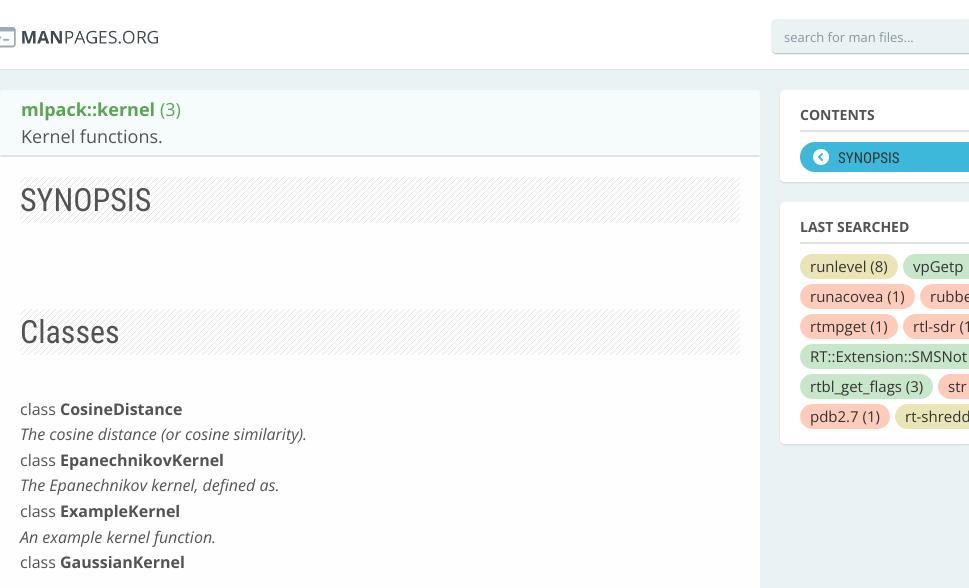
import math
import cairo

surface = cairo.ImageSurface(cairo.Format.RGB24, 969, 588)
ctx = cairo.Context(surface)
options = cairo.FontOptions()
options.set_hint_metrics(cairo.HintMetrics.OFF)
options.set_hint_style(cairo.HintStyle.NONE)
ctx.set_font_options(options)
ctx.set_miter_limit(4)


def ink(r, g, b):
    ctx.set_source_rgb(r / 255, g / 255, b / 255)


def write(x, y, s, family, size, color, bold=False, italic=False):
    ctx.select_font_face(family, cairo.FontSlant.ITALIC if italic else cairo.FontSlant.NORMAL, cairo.FontWeight.BOLD if bold else cairo.FontWeight.NORMAL)
    ctx.set_font_size(size)
    ink(*color)
    ctx.move_to(x, y)
    ctx.show_text(s)


def block(x, y, w, h, *color):
    ink(*color)
    ctx.rectangle(x, y, w, h)
    ctx.fill()


def round_path(x, y, w, h, r):
    ctx.new_sub_path()
    for i, (u, v) in enumerate([(x + w - r, y + h - r), (x + r, y + h - r), (x + r, y + r), (x + w - r, y + r)]):
        ctx.arc(u, v, r, i * math.pi / 2, (i + 1) * math.pi / 2)
    ctx.close_path()


def blur_box(x, y, w, h, r, blur, alpha):
    ctx.push_group_with_content(cairo.Content.ALPHA)
    ctx.set_operator(cairo.Operator.SOURCE)
    for i in range(15, -16, -2):
        e = blur * i / 6
        if min(w, h) + 2 * e > 0:
            ctx.set_source_rgba(0, 0, 0, alpha * math.erfc((i - 1) / 8.5) / 2)
            round_path(x - e, y - e, w + 2 * e, h + 2 * e, max(0, min(r + e + blur * .6, min(w, h) / 2 + e)))
            ctx.fill()
    ctx.mask(ctx.pop_group())


def paste(path, x, y, w, h):
    ctx.save()
    ctx.set_source_surface(cairo.ImageSurface.create_from_png(path), x, y)
    ctx.rectangle(x, y, w, h)
    ctx.fill()
    ctx.restore()


s1 = dict(family="Open Sans", size=13, color=(134, 150, 157))
s2 = dict(family="Open Sans", size=18, color=(89, 165, 82), bold=True)
s3 = dict(family="Open Sans", size=18, color=(89, 165, 82))
s4 = dict(family="Open Sans", size=18, color=(83, 83, 83))
s5 = dict(family="Roboto Condensed", size=32, color=(83, 83, 83))
s6 = dict(family="Open Sans", size=16, color=(83, 83, 83))
s7 = dict(family="Open Sans", size=16, color=(83, 83, 83), bold=True)
s8 = dict(family="Open Sans", size=16, color=(83, 83, 83), italic=True)
s9 = dict(family="Open Sans", size=14, color=(83, 83, 83), bold=True)
s10 = dict(family="Roboto Condensed", size=15, color=(51, 51, 51))
s11 = dict(family="Open Sans", size=15, color=(51, 51, 51))

ink(234, 242, 244)
ctx.paint()
block(0, 0, 969, 69, 255, 255, 255)
block(0, 69, 969, 1, 220, 229, 231)
paste("pic1.png", 0, 27, 158, 21)
ink(6, 47, 55)
blur_box(772, 20, 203, 34, 4, 0.5, 0.3)
ink(234, 242, 244)
round_path(772, 19, 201, 34, 4)
ctx.fill()
write(784, 42, "search for man files...", **s1)
ink(254, 254, 254)
ctx.new_path()
ctx.move_to(4, 90)
ctx.line_to(756, 90)
ctx.curve_to(758, 90, 760, 92, 760, 94)
ctx.line_to(760, 588)
ctx.line_to(0, 588)
ctx.line_to(0, 94)
ctx.curve_to(0, 92, 2, 90, 4, 90)
ctx.close_path()
ctx.fill()
ink(246, 251, 252)
ctx.new_path()
ctx.move_to(3, 90)
ctx.line_to(757, 90)
ctx.curve_to(758.5, 90, 760, 91.5, 760, 93)
ctx.line_to(760, 157)
ctx.line_to(0, 157)
ctx.line_to(0, 93)
ctx.curve_to(0, 91.5, 1.5, 90, 3, 90)
ctx.close_path()
ctx.fill()
ink(223, 227, 233)
ctx.new_path()
ctx.move_to(760, 157)
ctx.line_to(759, 155)
ctx.line_to(1, 155)
ctx.line_to(0, 157)
ctx.close_path()
ctx.fill()
write(21, 116, "mlpack::kernel", **s2)
write(160, 116, "(3)", **s3)
write(21, 143, "Kernel functions.", **s4)
paste("pic2.png", 20, 177, 720, 46)
write(20, 211, "SYNOPSIS", **s5)
paste("pic2.png", 20, 309, 720, 46)
write(20, 343, "Classes", **s5)
write(20, 415, "class", **s6)
write(60, 415, "CosineDistance", **s7)
write(20, 440, "The cosine distance (or cosine similarity).", **s8)
write(20, 466, "class", **s6)
write(60, 466, "EpanechnikovKernel", **s7)
write(20, 491, "The Epanechnikov kernel, defined as.", **s8)
write(20, 517, "class", **s6)
write(60, 517, "ExampleKernel", **s7)
write(20, 543, "An example kernel function.", **s8)
write(20, 568, "class", **s6)
write(60, 568, "GaussianKernel", **s7)
ink(0, 0, 0)
blur_box(780, 91, 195, 92, 4, 0.5, 0.1)
ink(255, 255, 255)
ctx.new_path()
ctx.move_to(784, 90)
ctx.line_to(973, 90)
ctx.line_to(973, 182)
ctx.line_to(784, 182)
ctx.curve_to(782, 182, 780, 180, 780, 178)
ctx.line_to(780, 94)
ctx.curve_to(780, 92, 782, 90, 784, 90)
ctx.close_path()
ctx.fill()
block(800, 130, 169, 2, 223, 227, 233)
write(800, 120, "CONTENTS", **s9)
ink(61, 184, 219)
round_path(800, 142, 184, 30, 15)
ctx.fill()
paste("pic3.png", 813, 149, 16, 16)
write(838, 163, "SYNOPSIS", **s10)
ink(0, 0, 0)
blur_box(780, 203, 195, 242, 4, 0.5, 0.1)
ink(255, 255, 255)
ctx.new_path()
ctx.move_to(784, 202)
ctx.line_to(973, 202)
ctx.line_to(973, 444)
ctx.line_to(784, 444)
ctx.curve_to(782, 444, 780, 442, 780, 440)
ctx.line_to(780, 206)
ctx.curve_to(780, 204, 782, 202, 784, 202)
ctx.close_path()
ctx.fill()
block(800, 242, 169, 2, 223, 227, 233)
write(800, 232, "LAST SEARCHED", **s9)
ink(234, 229, 183)
round_path(800, 254, 98, 25, 12.5)
ctx.fill()
write(810, 272, "runlevel (8)", **s11)
ink(200, 230, 201)
round_path(903, 254, 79, 25, 12.5)
ctx.fill()
write(913, 272, "vpGetp", **s11)
ink(255, 204, 188)
round_path(800, 284, 115, 25, 12.5)
ctx.fill()
write(810, 302, "runacovea (1)", **s11)
ink(255, 204, 188)
round_path(920, 284, 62, 25, 12.5)
ctx.fill()
write(930, 302, "rubbe", **s11)
ink(255, 204, 188)
round_path(800, 314, 98, 25, 12.5)
ctx.fill()
write(810, 332, "rtmpget (1)", **s11)
ink(255, 204, 188)
round_path(903, 314, 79, 25, 12.5)
ctx.fill()
write(913, 332, "rtl-sdr (1", **s11)
ink(200, 230, 201)
round_path(800, 344, 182, 25, 12.5)
ctx.fill()
write(810, 362, "RT::Extension::SMSNot", **s11)
ink(200, 230, 201)
round_path(800, 374, 133, 25, 12.5)
ctx.fill()
write(810, 392, "rtbl_get_flags (3)", **s11)
ink(255, 204, 188)
round_path(938, 374, 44, 25, 12.5)
ctx.fill()
write(948, 392, "str", **s11)
ink(255, 204, 188)
round_path(800, 404, 90, 25, 12.5)
ctx.fill()
write(810, 422, "pdb2.7 (1)", **s11)
ink(234, 229, 183)
round_path(895, 404, 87, 25, 12.5)
ctx.fill()
write(905, 422, "rt-shredd", **s11)
surface.write_to_png("screenshot.png")
